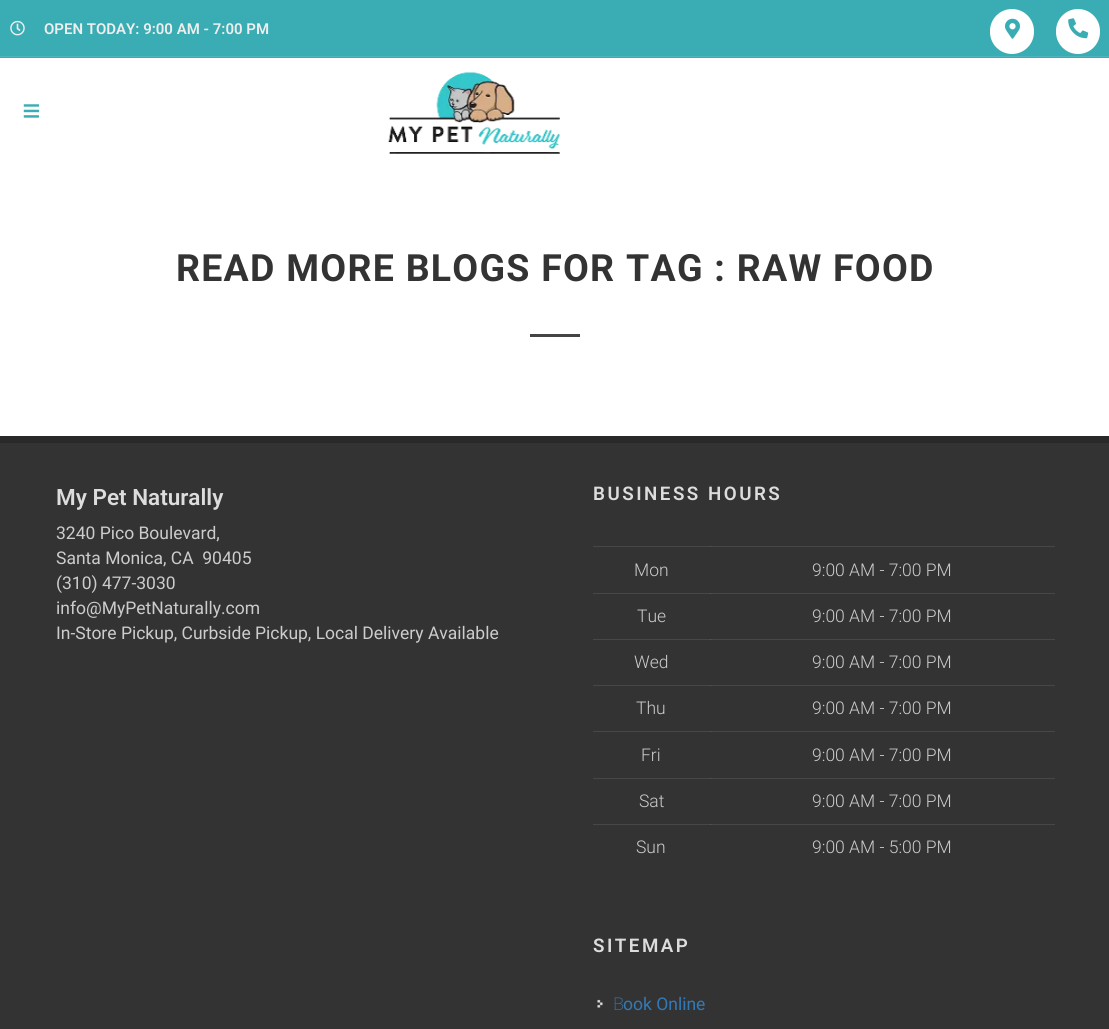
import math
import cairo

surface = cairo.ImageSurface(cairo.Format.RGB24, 1109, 1029)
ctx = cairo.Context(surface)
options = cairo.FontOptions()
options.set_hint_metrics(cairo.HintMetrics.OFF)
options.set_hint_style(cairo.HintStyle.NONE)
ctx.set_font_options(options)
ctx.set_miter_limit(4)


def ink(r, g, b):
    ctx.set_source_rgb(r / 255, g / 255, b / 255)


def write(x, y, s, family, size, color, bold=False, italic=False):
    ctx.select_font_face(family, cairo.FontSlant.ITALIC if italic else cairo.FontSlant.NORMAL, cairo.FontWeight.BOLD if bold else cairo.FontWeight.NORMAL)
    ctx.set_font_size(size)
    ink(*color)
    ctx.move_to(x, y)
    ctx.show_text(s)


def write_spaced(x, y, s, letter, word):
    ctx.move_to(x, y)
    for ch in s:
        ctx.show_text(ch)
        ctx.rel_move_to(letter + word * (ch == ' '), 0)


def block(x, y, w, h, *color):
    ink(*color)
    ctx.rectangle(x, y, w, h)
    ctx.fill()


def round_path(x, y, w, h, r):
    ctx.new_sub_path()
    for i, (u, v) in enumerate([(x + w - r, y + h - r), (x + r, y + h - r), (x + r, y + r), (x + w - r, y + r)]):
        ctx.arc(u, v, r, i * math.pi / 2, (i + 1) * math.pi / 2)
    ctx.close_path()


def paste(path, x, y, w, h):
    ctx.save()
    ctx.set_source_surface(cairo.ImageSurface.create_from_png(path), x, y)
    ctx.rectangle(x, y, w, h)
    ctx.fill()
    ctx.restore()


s1 = dict(family="Roboto SemiBold", size=15, color=(238, 238, 238))
s2 = dict(family="Roboto SemiBold", size=22.5, color=(221, 221, 221))
s3 = dict(family="Roboto", size=17.5, color=(204, 204, 204))
s4 = dict(family="Roboto Light", size=17.5, color=(204, 204, 204))
s5 = dict(family="Noto Sans ExtraLight", size=17.5, color=(50, 121, 183))
s6 = dict(family="Roboto", size=17.5, color=(50, 121, 183))

ink(255, 255, 255)
ctx.paint()
block(0, 0, 1109, 58, 57, 173, 179)
block(0, 56, 1109, 1, 77, 181, 187)
paste("pic1.png", 10, 20, 15, 16)
write(44, 34, "OPEN TODAY: 9:00 AM - 7:00 PM", **s1)
ink(255, 255, 255)
round_path(990, 9, 44, 45, 22)
ctx.fill()
paste("pic2.png", 1005, 18, 15, 21)
round_path(1056, 9, 44, 45, 22)
ctx.fill()
paste("pic3.png", 1068, 18, 21, 21)
paste("pic4.png", 23, 104, 17, 14)
paste("pic5.png", 388, 72, 172, 82)
ctx.select_font_face("Roboto", cairo.FontSlant.NORMAL, cairo.FontWeight.BOLD)
ctx.set_font_size(37.5)
ink(51, 51, 51)
write_spaced(176, 281, "READ MORE BLOGS FOR TAG : RAW FOOD", 1.25, 0)
block(530, 334, 50, 3, 68, 68, 68)
block(0, 443, 1109, 586, 51, 51, 51)
block(593, 546, 462, 1, 71, 71, 71)
block(593, 593, 462, 1, 71, 71, 71)
block(593, 639, 462, 1, 71, 71, 71)
block(593, 685, 462, 1, 71, 71, 71)
block(593, 731, 462, 1, 71, 71, 71)
block(593, 778, 462, 1, 71, 71, 71)
block(593, 824, 462, 1, 71, 71, 71)
block(0, 436, 1109, 7, 41, 41, 41)
write(56, 505, "My Pet Naturally", **s2)
write(56, 539, "3240 Pico Boulevard,", **s3)
write(56, 564, "Santa Monica, CA  90405", **s3)
write(56, 589, "(310) 477-3030", **s3)
write(56, 614, "info@MyPetNaturally.com", **s3)
write(56, 639, "In-Store Pickup, Curbside Pickup, Local Delivery Available", **s3)
ctx.select_font_face("Roboto SemiBold")
ctx.set_font_size(18.75)
ink(221, 221, 221)
write_spaced(593, 500, "BUSINESS HOURS", 2.5, 0)
write(634, 576, "Mon", **s4)
block(710, 546, 1, 1, 89, 89, 89)
write(812, 576, "9:00 AM - 7:00 PM", **s4)
write(637, 622, "Tue", **s4)
block(710, 593, 1, 1, 89, 89, 89)
write(812, 622, "9:00 AM - 7:00 PM", **s4)
write(634, 668, "Wed", **s4)
block(710, 639, 1, 1, 89, 89, 89)
write(812, 668, "9:00 AM - 7:00 PM", **s4)
write(636, 714, "Thu", **s4)
block(710, 685, 1, 1, 89, 89, 89)
write(812, 714, "9:00 AM - 7:00 PM", **s4)
write(641, 761, "Fri", **s4)
block(710, 731, 1, 1, 89, 89, 89)
write(812, 761, "9:00 AM - 7:00 PM", **s4)
write(639, 807, "Sat", **s4)
block(710, 778, 1, 1, 89, 89, 89)
write(812, 807, "9:00 AM - 7:00 PM", **s4)
write(636, 853, "Sun", **s4)
block(710, 824, 1, 1, 89, 89, 89)
write(812, 853, "9:00 AM - 5:00 PM", **s4)
ctx.select_font_face("Roboto SemiBold")
ctx.set_font_size(18.75)
ink(221, 221, 221)
write_spaced(593, 952, "SITEMAP", 2.5, 0)
paste("pic6.png", 597, 999, 6, 9)
write(613, 1010, "B", **s5)
write(623, 1010, "ook Online", **s6)
surface.write_to_png("screenshot.png")
